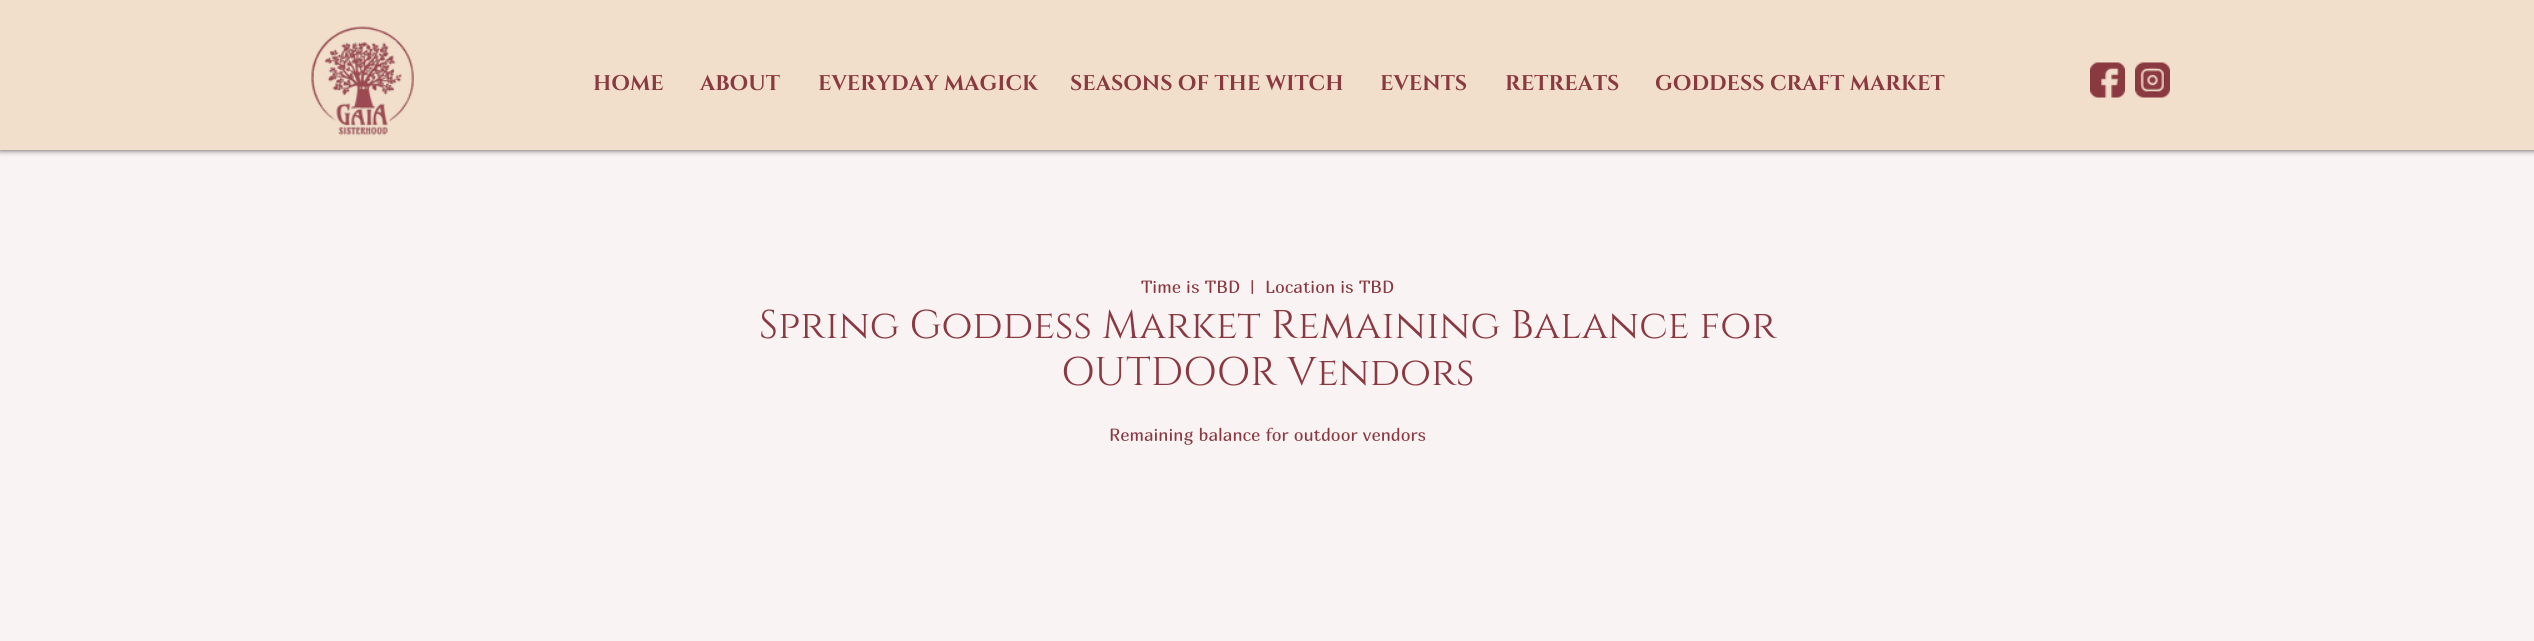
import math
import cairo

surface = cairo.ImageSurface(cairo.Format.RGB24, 2534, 641)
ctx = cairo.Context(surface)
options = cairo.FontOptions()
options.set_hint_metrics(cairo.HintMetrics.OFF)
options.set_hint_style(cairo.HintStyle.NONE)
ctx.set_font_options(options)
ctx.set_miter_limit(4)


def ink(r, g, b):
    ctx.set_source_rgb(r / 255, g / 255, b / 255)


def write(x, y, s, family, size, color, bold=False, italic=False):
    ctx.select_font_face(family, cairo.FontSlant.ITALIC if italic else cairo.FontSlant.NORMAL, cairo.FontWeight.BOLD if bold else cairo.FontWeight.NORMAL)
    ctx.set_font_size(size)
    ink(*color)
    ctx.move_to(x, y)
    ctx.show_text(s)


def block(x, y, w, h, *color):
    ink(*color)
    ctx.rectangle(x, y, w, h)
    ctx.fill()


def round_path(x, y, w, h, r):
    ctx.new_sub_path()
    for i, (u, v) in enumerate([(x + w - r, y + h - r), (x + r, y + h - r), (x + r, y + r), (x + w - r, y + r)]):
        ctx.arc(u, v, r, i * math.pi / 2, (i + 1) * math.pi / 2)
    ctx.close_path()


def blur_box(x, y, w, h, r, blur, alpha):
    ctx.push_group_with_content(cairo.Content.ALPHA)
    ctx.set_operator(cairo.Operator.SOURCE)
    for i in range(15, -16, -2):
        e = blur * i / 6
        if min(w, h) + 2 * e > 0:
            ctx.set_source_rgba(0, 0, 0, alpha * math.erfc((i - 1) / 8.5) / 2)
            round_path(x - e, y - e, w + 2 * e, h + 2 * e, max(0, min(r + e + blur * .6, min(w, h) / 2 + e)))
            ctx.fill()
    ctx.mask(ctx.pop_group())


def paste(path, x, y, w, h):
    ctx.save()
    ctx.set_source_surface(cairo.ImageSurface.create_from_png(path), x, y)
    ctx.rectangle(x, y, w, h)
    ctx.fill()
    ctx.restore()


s1 = dict(family="Cinzel", size=21.25, color=(139, 57, 65), bold=True)
s2 = dict(family="Marmelad", size=17.5, color=(139, 57, 65))
s3 = dict(family="Cinzel", size=40, color=(139, 57, 65))

ink(249, 243, 243)
ctx.paint()
ink(0, 0, 0)
blur_box(0, 0, 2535, 150, 0, 3, 0.7)
block(0, 0, 2534, 150, 241, 222, 203)
paste("pic1.png", 311, 26, 103, 110)
write(593, 90, "HOME", **s1)
write(700, 90, "ABOUT", **s1)
write(818, 90, "EVERYDAY MAGICK", **s1)
write(1070, 90, "SEASONS OF THE WITCH", **s1)
write(1380, 90, "EVENTS", **s1)
write(1505, 90, "RETREATS", **s1)
write(1655, 90, "GODDESS CRAFT MARKET", **s1)
paste("pic2.png", 2090, 62, 35, 36)
paste("pic3.png", 2135, 62, 35, 36)
write(1141, 293, "Time is TBD", **s2)
write(1250, 293, "|", **s2)
write(1265, 293, "Location is TBD", **s2)
write(759, 338, "Spring Goddess Market Remaining Balance for", **s3)
write(1061, 385, "OUTDOOR Vendors", **s3)
write(1109, 441, "Remaining balance for outdoor vendors", **s2)
surface.write_to_png("screenshot.png")
